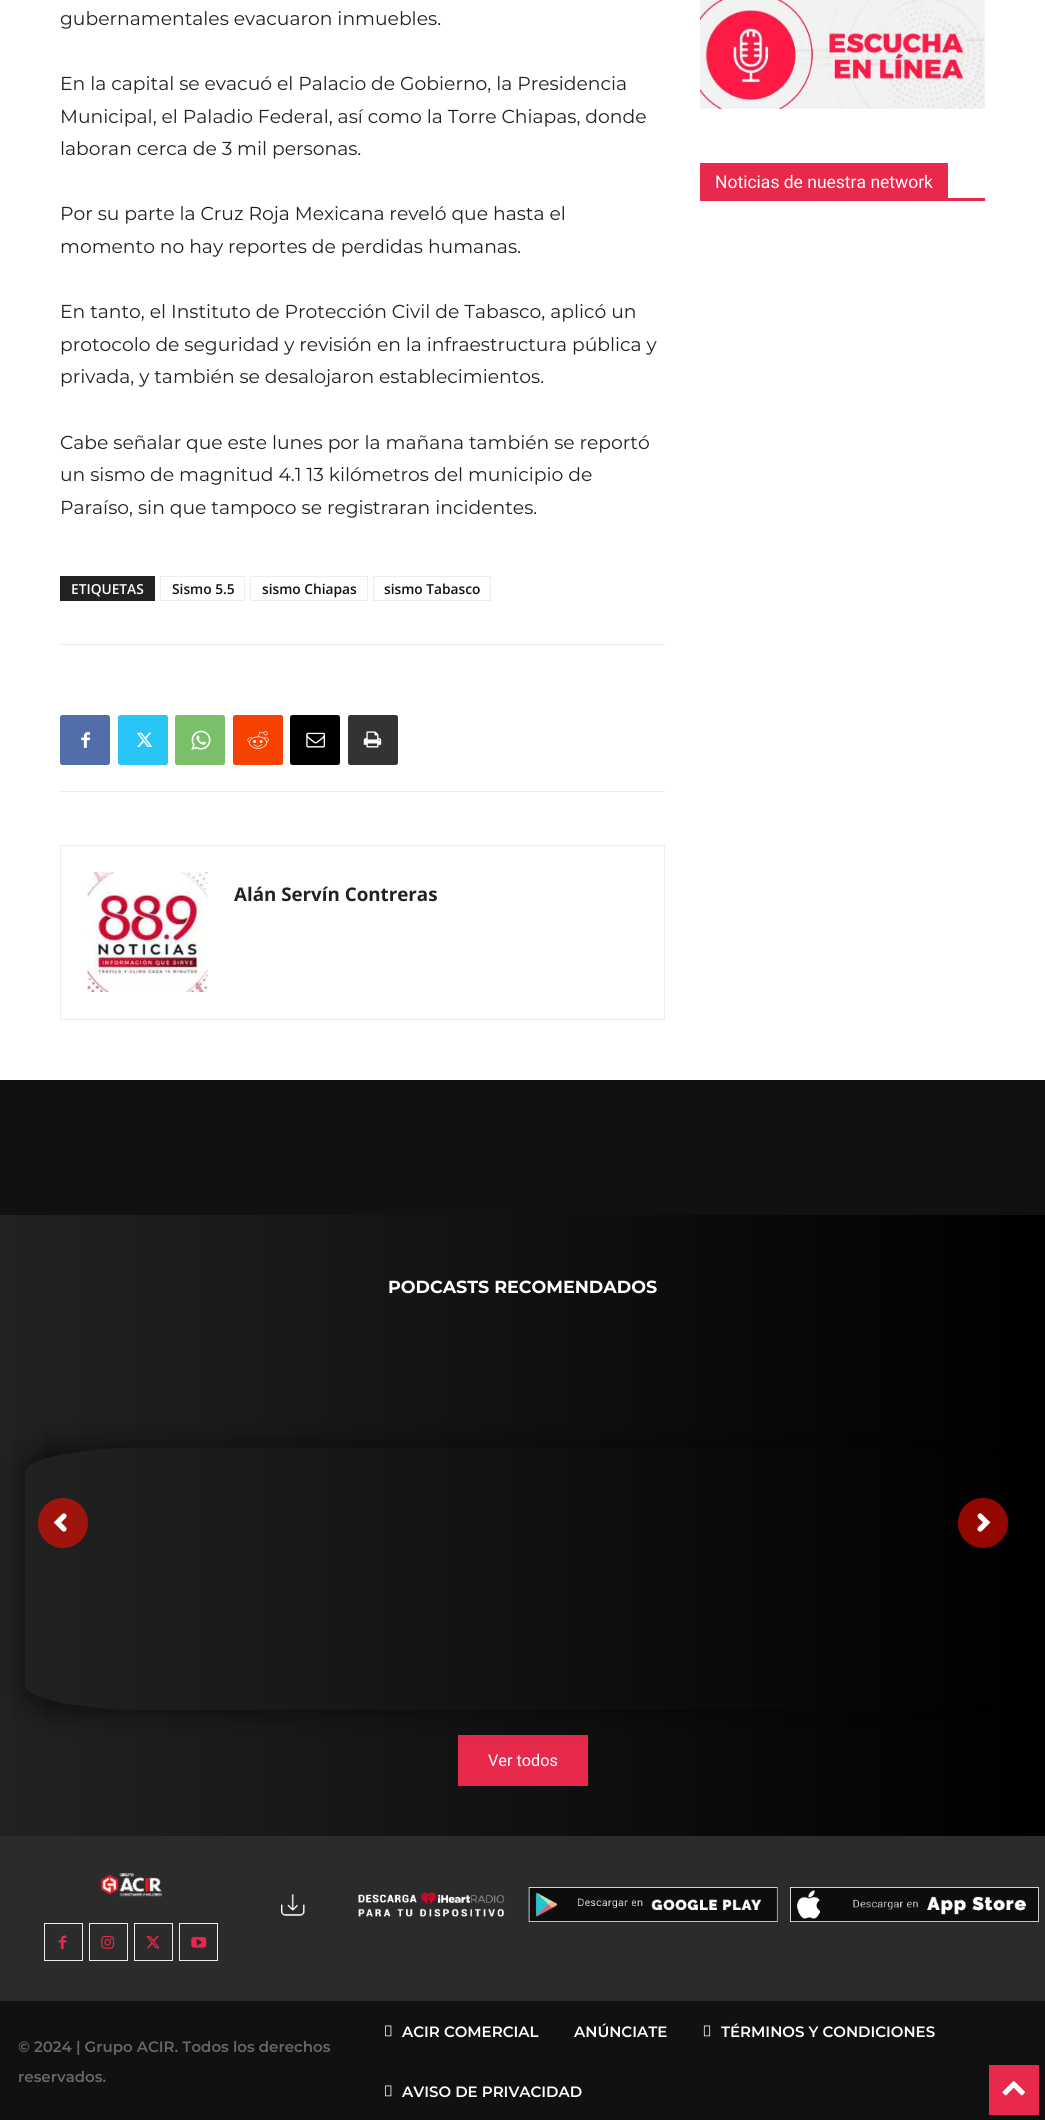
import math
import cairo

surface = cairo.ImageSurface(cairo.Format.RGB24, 1045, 2120)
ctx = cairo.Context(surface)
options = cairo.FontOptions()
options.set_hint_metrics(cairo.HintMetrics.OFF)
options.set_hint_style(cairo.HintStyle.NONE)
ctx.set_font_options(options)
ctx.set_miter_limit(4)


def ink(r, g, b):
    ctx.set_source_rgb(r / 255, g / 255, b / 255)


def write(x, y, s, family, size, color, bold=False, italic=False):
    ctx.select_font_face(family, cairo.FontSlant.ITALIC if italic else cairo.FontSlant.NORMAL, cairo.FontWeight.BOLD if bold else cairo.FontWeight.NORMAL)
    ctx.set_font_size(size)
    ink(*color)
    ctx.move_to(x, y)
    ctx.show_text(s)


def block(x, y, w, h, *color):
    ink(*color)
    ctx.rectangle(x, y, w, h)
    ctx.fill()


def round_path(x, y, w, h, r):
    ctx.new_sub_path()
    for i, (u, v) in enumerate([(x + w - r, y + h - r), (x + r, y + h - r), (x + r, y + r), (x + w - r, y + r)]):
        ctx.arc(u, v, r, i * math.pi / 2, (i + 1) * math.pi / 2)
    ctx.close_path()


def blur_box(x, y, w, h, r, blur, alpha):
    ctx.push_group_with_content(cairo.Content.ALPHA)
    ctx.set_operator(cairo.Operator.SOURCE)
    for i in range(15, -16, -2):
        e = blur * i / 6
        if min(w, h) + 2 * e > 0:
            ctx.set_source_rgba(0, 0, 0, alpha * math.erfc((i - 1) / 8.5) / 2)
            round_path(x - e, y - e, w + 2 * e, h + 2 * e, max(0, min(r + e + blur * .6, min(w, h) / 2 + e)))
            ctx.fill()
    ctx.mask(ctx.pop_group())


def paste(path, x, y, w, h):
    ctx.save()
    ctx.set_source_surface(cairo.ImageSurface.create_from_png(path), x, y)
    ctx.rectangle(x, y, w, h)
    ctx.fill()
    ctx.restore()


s1 = dict(family="Montserrat", size=18.75, color=(34, 34, 34))
s2 = dict(family="Open Sans SemiBold", size=13.75, color=(255, 255, 255))
s3 = dict(family="Open Sans SemiBold", size=13.75, color=(17, 17, 17))
s4 = dict(family="Open Sans", size=18.75, color=(34, 34, 34), bold=True)
s5 = dict(family="Roboto", size=17.5, color=(255, 255, 255))
s6 = dict(family="Montserrat", size=17.5, color=(255, 255, 255), bold=True)
s7 = dict(family="Roboto", size=16.25, color=(255, 255, 255))
s8 = dict(family="Montserrat SemiBold", size=15, color=(102, 102, 102))
s9 = dict(family="Montserrat SemiBold", size=15, color=(255, 255, 255))

ink(255, 255, 255)
ctx.paint()
write(60, 25, "gubernamentales evacuaron inmuebles.", **s1)
write(60, 90, "En la capital se evacuó el Palacio de Gobierno, la Presidencia", **s1)
write(60, 123, "Municipal, el Paladio Federal, así como la Torre Chiapas, donde", **s1)
write(60, 155, "laboran cerca de 3 mil personas.", **s1)
write(60, 220, "Por su parte la Cruz Roja Mexicana reveló que hasta el", **s1)
write(60, 253, "momento no hay reportes de perdidas humanas.", **s1)
write(60, 318, "En tanto, el Instituto de Protección Civil de Tabasco, aplicó un", **s1)
write(60, 351, "protocolo de seguridad y revisión en la infraestructura pública y", **s1)
write(60, 383, "privada, y también se desalojaron establecimientos.", **s1)
write(60, 449, "Cabe señalar que este lunes por la mañana también se reportó", **s1)
write(60, 481, "un sismo de magnitud 4.1 13 kilómetros del municipio de", **s1)
write(60, 514, "Paraíso, sin que tampoco se registraran incidentes.", **s1)
block(60, 576, 95, 25, 34, 34, 34)
write(71, 594, "ETIQUETAS", **s2)
ctx.rectangle(160.5, 576.5, 84, 24)
ink(237, 237, 237)
ctx.set_line_width(1)
ctx.stroke()
write(172, 594, "Sismo 5.5", **s3)
ctx.rectangle(250.5, 576.5, 117, 24)
ink(237, 237, 237)
ctx.stroke()
write(262, 594, "sismo Chiapas", **s3)
ctx.rectangle(373.5, 576.5, 117, 24)
ink(237, 237, 237)
ctx.stroke()
write(384, 594, "sismo Tabasco", **s3)
block(60, 644, 605, 1, 237, 237, 237)
block(60, 791, 605, 1, 237, 237, 237)
ink(81, 110, 171)
round_path(60, 715, 50, 50, 2.5)
ctx.fill()
paste("pic1.png", 81, 732, 9, 16)
ink(41, 197, 246)
round_path(118, 715, 50, 50, 2.5)
ctx.fill()
paste("pic2.png", 136, 732, 17, 15)
ink(123, 191, 106)
round_path(175, 715, 50, 50, 2.5)
ctx.fill()
paste("pic3.png", 191, 730, 20, 20)
ink(245, 66, 0)
round_path(233, 715, 50, 50, 2.5)
ctx.fill()
paste("pic4.png", 247, 731, 22, 18)
ink(0, 0, 0)
round_path(290, 715, 50, 50, 2.5)
ctx.fill()
paste("pic5.png", 306, 732, 19, 16)
ink(51, 51, 51)
round_path(348, 715, 50, 50, 2.5)
ctx.fill()
paste("pic6.png", 363, 731, 19, 17)
ctx.rectangle(60.5, 845.5, 604, 174)
ink(237, 237, 237)
ctx.stroke()
paste("pic7.png", 87, 872, 121, 120)
write(234, 901, "Alán Servín Contreras", **s4)
paste("pic8.png", 700, 0, 285, 109)
block(700, 198, 285, 3, 232, 41, 76)
block(700, 163, 248, 35, 232, 41, 76)
write(715, 188, "Noticias de nuestra network", **s5)
block(0, 1080, 1045, 135, 17, 17, 17)
gradient = cairo.LinearGradient(1045, 1601, 0, 1601)
gradient.add_color_stop_rgba(0, 0, 0, 0, 1)
gradient.add_color_stop_rgba(1, 0.133, 0.133, 0.133, 1)
ctx.set_source(gradient)
ctx.rectangle(0, 1215, 1045, 621)
ctx.fill()
write(388, 1293, "PODCASTS RECOMENDADOS", **s6)
block(458, 1735, 130, 51, 232, 41, 76)
ctx.save()
ctx.set_fill_rule(cairo.FillRule.EVEN_ODD)
ctx.new_path()
ctx.move_to(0, 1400)
ctx.line_to(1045, 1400)
ctx.line_to(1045, 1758)
ctx.line_to(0, 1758)
ctx.close_path()
ctx.move_to(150, 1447.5)
ctx.line_to(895, 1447.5)
ctx.curve_to(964, 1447.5, 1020, 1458.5, 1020, 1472.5)
ctx.line_to(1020, 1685)
ctx.curve_to(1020, 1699, 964, 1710, 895, 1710)
ctx.line_to(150, 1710)
ctx.curve_to(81, 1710, 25, 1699, 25, 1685)
ctx.line_to(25, 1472.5)
ctx.curve_to(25, 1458.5, 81, 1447.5, 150, 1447.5)
ctx.close_path()
ctx.clip()
ink(0, 0, 0)
blur_box(25, 1448, 995, 262, 25, 15.5, 0.6)
ctx.restore()
ink(159, 21, 14)
ctx.arc(63, 1523, 25, 0, 2 * math.pi)
ctx.fill()
paste("pic9.png", 53, 1513, 14, 19)
ink(146, 8, 1)
ctx.arc(983, 1523, 25, 0, 2 * math.pi)
ctx.fill()
paste("pic10.png", 977, 1513, 14, 19)
write(488, 1766, "Ver todos", **s7)
block(0, 1836, 1045, 165, 43, 43, 43)
paste("pic11.png", 100, 1873, 62, 24)
ctx.rectangle(44.5, 1923.5, 38, 37)
ink(237, 237, 237)
ctx.stroke()
paste("pic12.png", 58, 1935, 9, 15)
ctx.rectangle(89.5, 1923.5, 38, 37)
ctx.stroke()
paste("pic13.png", 101, 1935, 14, 14)
ctx.rectangle(134.5, 1923.5, 38, 37)
ctx.stroke()
paste("pic14.png", 146, 1936, 14, 13)
ctx.rectangle(179.5, 1923.5, 38, 37)
ctx.stroke()
paste("pic15.png", 191, 1937, 16, 11)
paste("pic16.png", 281, 1892, 224, 25)
paste("pic17.png", 528, 1887, 250, 35)
paste("pic18.png", 790, 1887, 249, 35)
block(0, 2001, 1045, 119, 17, 17, 17)
write(18, 2052, "© 2024 | Grupo ACIR. Todos los derechos", **s8)
write(18, 2082, "reservados.", **s8)
paste("pic19.png", 385, 2025, 7, 12)
write(402, 2037, "ACIR COMERCIAL", **s9)
write(574, 2037, "ANÚNCIATE", **s9)
paste("pic20.png", 703, 2025, 8, 12)
write(721, 2037, "TÉRMINOS Y CONDICIONES", **s9)
paste("pic19.png", 385, 2085, 7, 12)
write(402, 2097, "AVISO DE PRIVACIDAD", **s9)
block(989, 2065, 50, 50, 232, 41, 76)
paste("pic21.png", 1002, 2081, 23, 15)
surface.write_to_png("screenshot.png")
